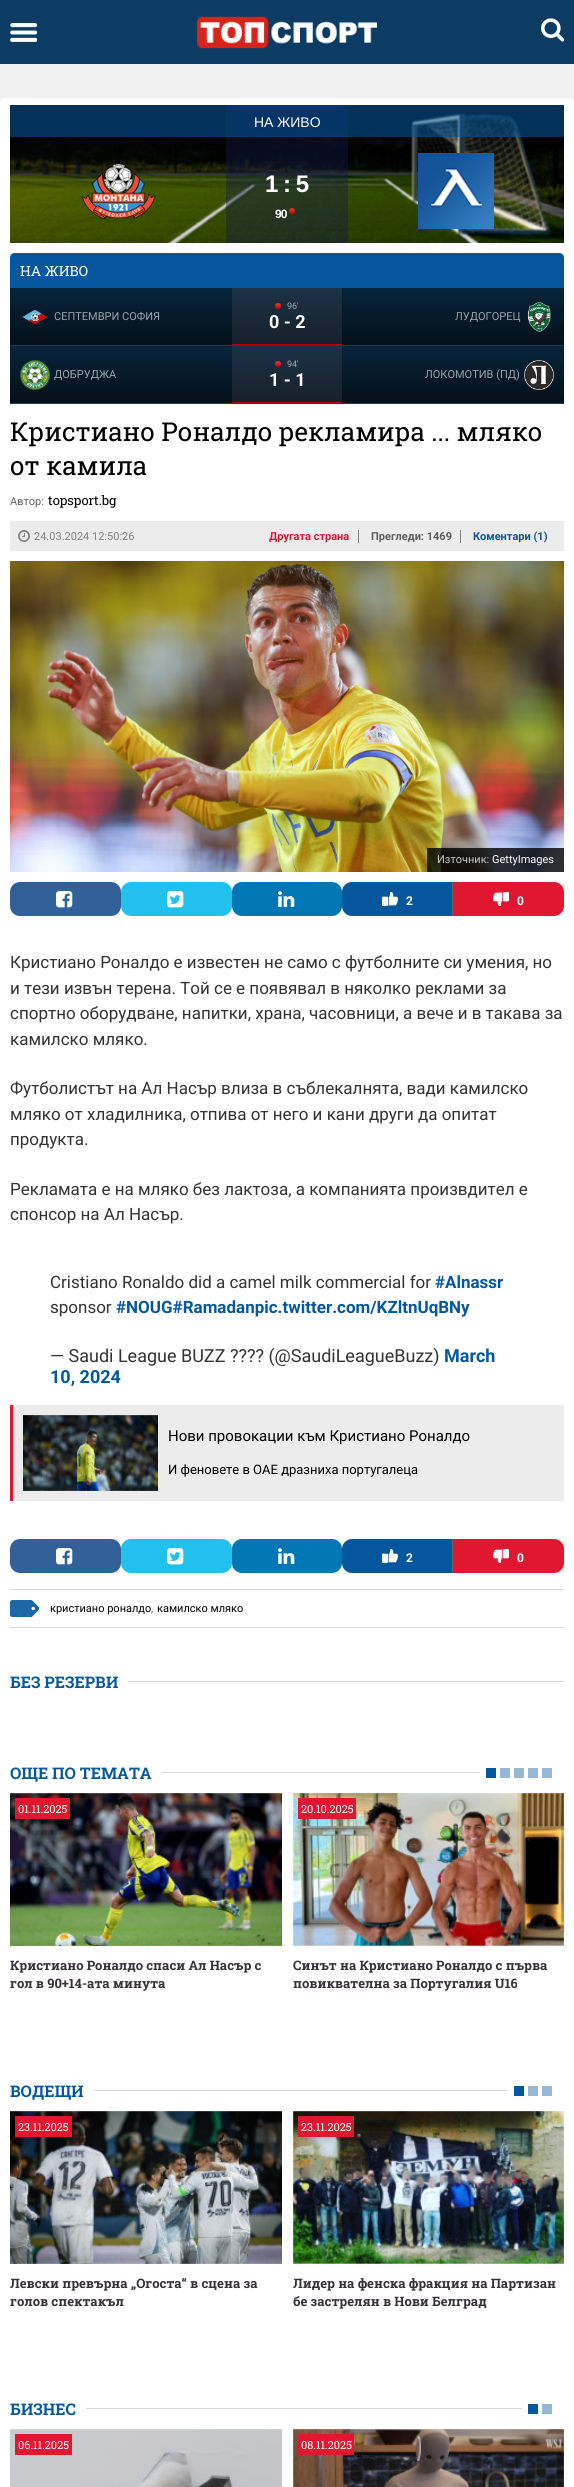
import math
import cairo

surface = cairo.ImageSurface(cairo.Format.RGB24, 574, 2487)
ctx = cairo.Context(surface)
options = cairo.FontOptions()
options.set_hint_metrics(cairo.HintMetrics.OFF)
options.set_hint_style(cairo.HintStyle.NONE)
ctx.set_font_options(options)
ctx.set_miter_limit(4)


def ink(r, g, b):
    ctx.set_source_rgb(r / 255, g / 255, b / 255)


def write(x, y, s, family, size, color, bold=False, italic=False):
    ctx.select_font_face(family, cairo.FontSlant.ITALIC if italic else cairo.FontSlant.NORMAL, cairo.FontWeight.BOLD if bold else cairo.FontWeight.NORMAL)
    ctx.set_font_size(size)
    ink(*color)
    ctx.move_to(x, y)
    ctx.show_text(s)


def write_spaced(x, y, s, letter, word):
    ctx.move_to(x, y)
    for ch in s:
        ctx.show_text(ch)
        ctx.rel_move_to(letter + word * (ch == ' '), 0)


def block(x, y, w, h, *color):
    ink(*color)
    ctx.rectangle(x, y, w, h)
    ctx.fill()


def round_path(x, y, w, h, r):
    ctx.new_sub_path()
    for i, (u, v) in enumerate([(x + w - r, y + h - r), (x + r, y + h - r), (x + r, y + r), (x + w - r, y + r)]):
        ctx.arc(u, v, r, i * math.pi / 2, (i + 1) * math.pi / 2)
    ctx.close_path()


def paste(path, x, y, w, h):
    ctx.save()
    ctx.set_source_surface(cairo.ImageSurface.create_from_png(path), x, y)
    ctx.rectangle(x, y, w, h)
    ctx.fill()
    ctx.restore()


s1 = dict(family="Liberation Sans", size=14, color=(255, 255, 255))
s2 = dict(family="Roboto Slab", size=14, color=(255, 255, 255))
s3 = dict(family="Roboto", size=11, color=(155, 163, 170))
s4 = dict(family="Roboto", size=9, color=(163, 171, 178))
s5 = dict(family="Roboto", size=18, color=(255, 255, 255), bold=True)
s6 = dict(family="Roboto Slab", size=26, color=(0, 0, 0))
s7 = dict(family="Roboto", size=11, color=(93, 93, 93))
s8 = dict(family="Roboto Slab", size=13, color=(0, 0, 0))
s9 = dict(family="Roboto", size=11, color=(129, 129, 129))
s10 = dict(family="Roboto", size=11, color=(225, 22, 49), bold=True)
s11 = dict(family="Roboto", size=11, color=(93, 93, 93), bold=True)
s12 = dict(family="Roboto", size=11, color=(5, 87, 157), bold=True)
s13 = dict(family="Roboto", size=11, color=(198, 198, 198))
s14 = dict(family="Roboto", size=11, color=(255, 255, 255))
s15 = dict(family="Roboto", size=12, color=(255, 255, 255), bold=True)
s16 = dict(family="Roboto", size=17, color=(51, 51, 51))
s17 = dict(family="Roboto", size=17, color=(5, 87, 157), bold=True)
s18 = dict(family="Roboto", size=18, color=(51, 51, 51))
s19 = dict(family="Roboto", size=18, color=(5, 87, 157), bold=True)
s20 = dict(family="Roboto", size=15, color=(0, 0, 0))
s21 = dict(family="Roboto", size=13, color=(0, 0, 0))
s22 = dict(family="Roboto", size=11, color=(0, 0, 0))
s23 = dict(family="Roboto Slab", size=16, color=(5, 87, 157), bold=True)
s24 = dict(family="Roboto Slab", size=11, color=(255, 255, 255))
s25 = dict(family="Roboto Slab", size=13, color=(54, 48, 57), bold=True)

ink(240, 240, 240)
ctx.paint()
block(0, 0, 574, 64, 12, 59, 99)
paste("pic1.png", 10, 23, 27, 19)
paste("pic2.png", 197, 16, 180, 33)
paste("pic3.png", 541, 18, 24, 24)
ink(255, 255, 255)
round_path(0, 98, 574, 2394, 5)
ctx.fill()
paste("pic4.png", 10, 105, 554, 138)
ctx.set_source_rgba(0.075, 0.106, 0.302, 0.4)
ctx.rectangle(226, 105, 122, 138)
ctx.fill()
ctx.set_source_rgba(0.016, 0.341, 0.616, 0.57)
ctx.rectangle(10, 105, 554, 32)
ctx.fill()
write(254, 127, "НА ЖИВО", **s1)
paste("pic5.png", 81, 163, 75, 56)
ctx.select_font_face("Liberation Sans", cairo.FontSlant.NORMAL, cairo.FontWeight.BOLD)
ctx.set_font_size(24)
write_spaced(265, 192, "1 : 5", -1, 0)
ctx.set_font_size(12)
write_spaced(275, 218, "90", -1, 0)
gradient = cairo.LinearGradient(292, 208, 292, 214)
gradient.add_color_stop_rgba(0, 0.886, 0.231, 0.243, 1)
gradient.add_color_stop_rgba(1, 0.776, 0.004, 0.004, 1)
ctx.set_source(gradient)
ctx.new_path()
ctx.arc(292, 211, 3, 0, 2 * math.pi)
ctx.fill()
paste("pic6.png", 418, 153, 76, 76)
ink(5, 87, 157)
ctx.new_path()
ctx.move_to(15, 253)
ctx.line_to(559, 253)
ctx.curve_to(562, 253, 564, 255, 564, 258)
ctx.line_to(564, 288)
ctx.line_to(10, 288)
ctx.line_to(10, 258)
ctx.curve_to(10, 255, 12, 253, 15, 253)
ctx.close_path()
ctx.fill()
write(20, 276, "НА ЖИВО", **s2)
gradient = cairo.LinearGradient(287, 288, 287, 345)
gradient.add_color_stop_rgba(0, 0.027, 0.141, 0.231, 1)
gradient.add_color_stop_rgba(1, 0.012, 0.063, 0.102, 1)
ctx.set_source(gradient)
ctx.rectangle(10, 288, 554, 57)
ctx.fill()
gradient = cairo.LinearGradient(287, 288, 287, 345)
gradient.add_color_stop_rgba(0, 0.106, 0.196, 0.278, 1)
gradient.add_color_stop_rgba(1, 0.09, 0.125, 0.161, 1)
ctx.set_source(gradient)
ctx.rectangle(232, 288, 110, 56)
ctx.fill()
block(10, 345, 554, 1, 32, 58, 79)
paste("pic7.png", 22, 309, 26, 16)
write(54, 320, "СЕПТЕМВРИ СОФИЯ", **s3)
block(232, 344, 110, 1, 177, 3, 4)
gradient = cairo.LinearGradient(278, 303, 278, 309)
gradient.add_color_stop_rgba(0, 0.886, 0.231, 0.243, 1)
gradient.add_color_stop_rgba(1, 0.776, 0.004, 0.004, 1)
ctx.set_source(gradient)
ctx.new_path()
ctx.arc(278, 306, 3, 0, 2 * math.pi)
ctx.fill()
write(287, 309, "96′", **s4)
write(269, 328, "0 - 2", **s5)
write(455, 320, "ЛУДОГОРЕЦ", **s3)
paste("pic8.png", 527, 302, 24, 30)
gradient = cairo.LinearGradient(287, 346, 287, 403)
gradient.add_color_stop_rgba(0, 0.027, 0.141, 0.231, 1)
gradient.add_color_stop_rgba(1, 0.012, 0.063, 0.102, 1)
ctx.set_source(gradient)
ctx.rectangle(10, 346, 554, 57)
ctx.fill()
gradient = cairo.LinearGradient(287, 346, 287, 403)
gradient.add_color_stop_rgba(0, 0.106, 0.196, 0.278, 1)
gradient.add_color_stop_rgba(1, 0.09, 0.125, 0.161, 1)
ctx.set_source(gradient)
ctx.rectangle(232, 346, 110, 56)
ctx.fill()
block(10, 403, 554, 1, 32, 58, 79)
paste("pic9.png", 20, 360, 30, 30)
write(54, 378, "ДОБРУДЖА", **s3)
block(232, 402, 110, 1, 177, 3, 4)
gradient = cairo.LinearGradient(278, 361, 278, 367)
gradient.add_color_stop_rgba(0, 0.886, 0.231, 0.243, 1)
gradient.add_color_stop_rgba(1, 0.776, 0.004, 0.004, 1)
ctx.set_source(gradient)
ctx.new_path()
ctx.arc(278, 364, 3, 0, 2 * math.pi)
ctx.fill()
write(287, 367, "94′", **s4)
write(269, 386, "1 - 1", **s5)
write(425, 378, "ЛОКОМОТИВ (ПД)", **s3)
paste("pic10.png", 524, 360, 30, 30)
write(10, 441, "Кристиано Роналдо рекламира ... мляко", **s6)
write(10, 475, "от камила", **s6)
write(10, 505, "Автор:", **s7)
write(48, 505, "topsport.bg", **s8)
block(10, 521, 554, 30, 236, 236, 236)
paste("pic11.png", 18, 530, 12, 12)
write(34, 540, "24.03.2024 12:50:26", **s9)
write(269, 540, "Другата страна", **s10)
block(358, 530, 1, 13, 129, 129, 129)
block(460, 530, 1, 13, 129, 129, 129)
write(371, 540, "Прегледи: 1469", **s11)
write(473, 540, "Коментари (1)", **s12)
paste("pic12.png", 10, 561, 554, 311)
ctx.set_source_rgba(0, 0, 0, 0.8)
ctx.rectangle(427, 848, 137, 24)
ctx.fill()
write(437, 863, "Източник:", **s13)
write(492, 863, "GettyImages", **s14)
ink(48, 97, 153)
round_path(10, 882, 111, 34, 10)
ctx.fill()
paste("pic13.png", 56, 891, 17, 17)
ink(34, 192, 237)
round_path(121, 882, 111, 34, 10)
ctx.fill()
paste("pic14.png", 167, 891, 17, 17)
ink(0, 119, 181)
round_path(232, 882, 110, 34, 10)
ctx.fill()
paste("pic15.png", 278, 891, 17, 16)
ink(5, 87, 157)
ctx.new_path()
ctx.move_to(352, 882)
ctx.line_to(453, 882)
ctx.line_to(453, 916)
ctx.line_to(352, 916)
ctx.curve_to(346.5, 916, 342, 911.5, 342, 906)
ctx.line_to(342, 892)
ctx.curve_to(342, 886.5, 346.5, 882, 352, 882)
ctx.close_path()
ctx.fill()
block(452, 882, 1, 34, 102, 102, 102)
paste("pic16.png", 382, 892, 16, 14)
write(406, 905, "2", **s15)
ink(225, 22, 49)
ctx.new_path()
ctx.move_to(453, 882)
ctx.line_to(554, 882)
ctx.curve_to(559.5, 882, 564, 886.5, 564, 892)
ctx.line_to(564, 906)
ctx.curve_to(564, 911.5, 559.5, 916, 554, 916)
ctx.line_to(453, 916)
ctx.close_path()
ctx.fill()
paste("pic17.png", 493, 892, 16, 14)
write(517, 905, "0", **s15)
write(10, 968, "Кристиано Роналдо е известен не само с футболните си умения, но", **s16)
write(10, 994, "и тези извън терена. Той се е появявал в няколко реклами за", **s16)
write(10, 1019, "спортно оборудване, напитки, храна, часовници, а вече и в такава за", **s16)
write(10, 1045, "камилско мляко.", **s16)
write(10, 1094, "Футболистът на Ал Насър влиза в съблекалнята, вади камилско", **s16)
write(10, 1120, "мляко от хладилника, отпива от него и кани други да опитат", **s16)
write(10, 1145, "продукта.", **s16)
write(10, 1195, "Рекламата е на мляко без лактоза, а компанията произвдител е", **s16)
write(10, 1220, "спонсор на Ал Насър.", **s16)
write(50, 1288, "Cristiano Ronaldo did a camel milk commercial for", **s16)
write(435, 1288, "#Alnassr", **s17)
write(50, 1313, "sponsor", **s16)
write(116, 1313, "#NOUG#Ramadanpic.twitter.com/KZltnUqBNy", **s17)
write(50, 1362, "— Saudi League BUZZ ???? (@SaudiLeagueBuzz)", **s18)
write(444, 1362, "March", **s19)
write(50, 1383, "10, 2024", **s19)
block(13, 1405, 551, 96, 236, 236, 236)
block(10, 1405, 3, 96, 225, 22, 49)
paste("pic18.png", 23, 1415, 135, 76)
write(168, 1441, "Нови провокации към Кристиано Роналдо", **s20)
write(168, 1474, "И феновете в ОАЕ дразниха португалеца", **s21)
ink(48, 97, 153)
round_path(10, 1539, 111, 34, 10)
ctx.fill()
paste("pic13.png", 56, 1548, 17, 17)
ink(34, 192, 237)
round_path(121, 1539, 111, 34, 10)
ctx.fill()
paste("pic14.png", 167, 1548, 17, 17)
ink(0, 119, 181)
round_path(232, 1539, 110, 34, 10)
ctx.fill()
paste("pic15.png", 278, 1548, 17, 16)
ink(5, 87, 157)
ctx.new_path()
ctx.move_to(352, 1539)
ctx.line_to(453, 1539)
ctx.line_to(453, 1573)
ctx.line_to(352, 1573)
ctx.curve_to(346.5, 1573, 342, 1568.5, 342, 1563)
ctx.line_to(342, 1549)
ctx.curve_to(342, 1543.5, 346.5, 1539, 352, 1539)
ctx.close_path()
ctx.fill()
block(452, 1539, 1, 34, 102, 102, 102)
paste("pic16.png", 382, 1549, 16, 14)
write(406, 1562, "2", **s15)
ink(225, 22, 49)
ctx.new_path()
ctx.move_to(453, 1539)
ctx.line_to(554, 1539)
ctx.curve_to(559.5, 1539, 564, 1543.5, 564, 1549)
ctx.line_to(564, 1563)
ctx.curve_to(564, 1568.5, 559.5, 1573, 554, 1573)
ctx.line_to(453, 1573)
ctx.close_path()
ctx.fill()
paste("pic17.png", 493, 1549, 16, 14)
write(517, 1562, "0", **s15)
paste("pic19.png", 10, 1600, 29, 17)
block(10, 1589, 554, 1, 216, 216, 216)
block(10, 1627, 554, 1, 216, 216, 216)
write(50, 1612, "кристиано роналдо", **s22)
write(151, 1612, ",", **s7)
write(157, 1612, "камилско мляко", **s22)
write(10, 1688, "БЕЗ РЕЗЕРВИ", **s23)
block(128, 1681, 436, 1, 216, 216, 216)
write(10, 1779, "ОЩЕ ПО ТЕМАТА", **s23)
block(162, 1772, 318, 1, 216, 216, 216)
block(486, 1768, 10, 10, 5, 87, 157)
block(500, 1768, 10, 10, 150, 184, 214)
block(514, 1768, 10, 10, 150, 184, 214)
block(528, 1768, 10, 10, 150, 184, 214)
block(542, 1768, 10, 10, 150, 184, 214)
paste("pic20.png", 10, 1793, 272, 153)
block(15, 1798, 55, 21, 225, 22, 49)
write(18, 1813, "01.11.2025", **s24)
write(10, 1970, "Кристиано Роналдо спаси Ал Насър с", **s25)
write(10, 1988, "гол в 90+14-ата минута", **s25)
paste("pic21.png", 293, 1793, 271, 153)
block(298, 1798, 58, 21, 225, 22, 49)
write(301, 1813, "20.10.2025", **s24)
ctx.save()
ctx.rectangle(293, 1793, 271, 227)
ctx.clip()
write(293, 1970, "Синът на Кристиано Роналдо с първа", **s25)
ctx.restore()
write(293, 1988, "повиквателна за Португалия U16", **s25)
write(10, 2097, "ВОДЕЩИ", **s23)
block(94, 2090, 414, 1, 216, 216, 216)
block(514, 2086, 10, 10, 5, 87, 157)
block(528, 2086, 10, 10, 150, 184, 214)
block(542, 2086, 10, 10, 150, 184, 214)
paste("pic22.png", 10, 2111, 272, 153)
block(15, 2116, 57, 21, 225, 22, 49)
write(18, 2131, "23.11.2025", **s24)
write(10, 2288, "Левски превърна „Огоста“ в сцена за", **s25)
write(10, 2306, "голов спектакъл", **s25)
paste("pic23.png", 293, 2111, 271, 153)
block(298, 2116, 56, 21, 225, 22, 49)
write(301, 2131, "23.11.2025", **s24)
write(293, 2288, "Лидер на фенска фракция на Партизан", **s25)
write(293, 2306, "бе застрелян в Нови Белград", **s25)
write(10, 2415, "БИЗНЕС", **s23)
block(86, 2408, 436, 1, 216, 216, 216)
block(528, 2404, 10, 10, 5, 87, 157)
block(542, 2404, 10, 10, 150, 184, 214)
paste("pic24.png", 10, 2429, 272, 58)
block(15, 2434, 57, 21, 225, 22, 49)
write(18, 2449, "06.11.2025", **s24)
paste("pic25.png", 293, 2429, 271, 58)
block(298, 2434, 56, 21, 225, 22, 49)
write(301, 2449, "08.11.2025", **s24)
surface.write_to_png("screenshot.png")
